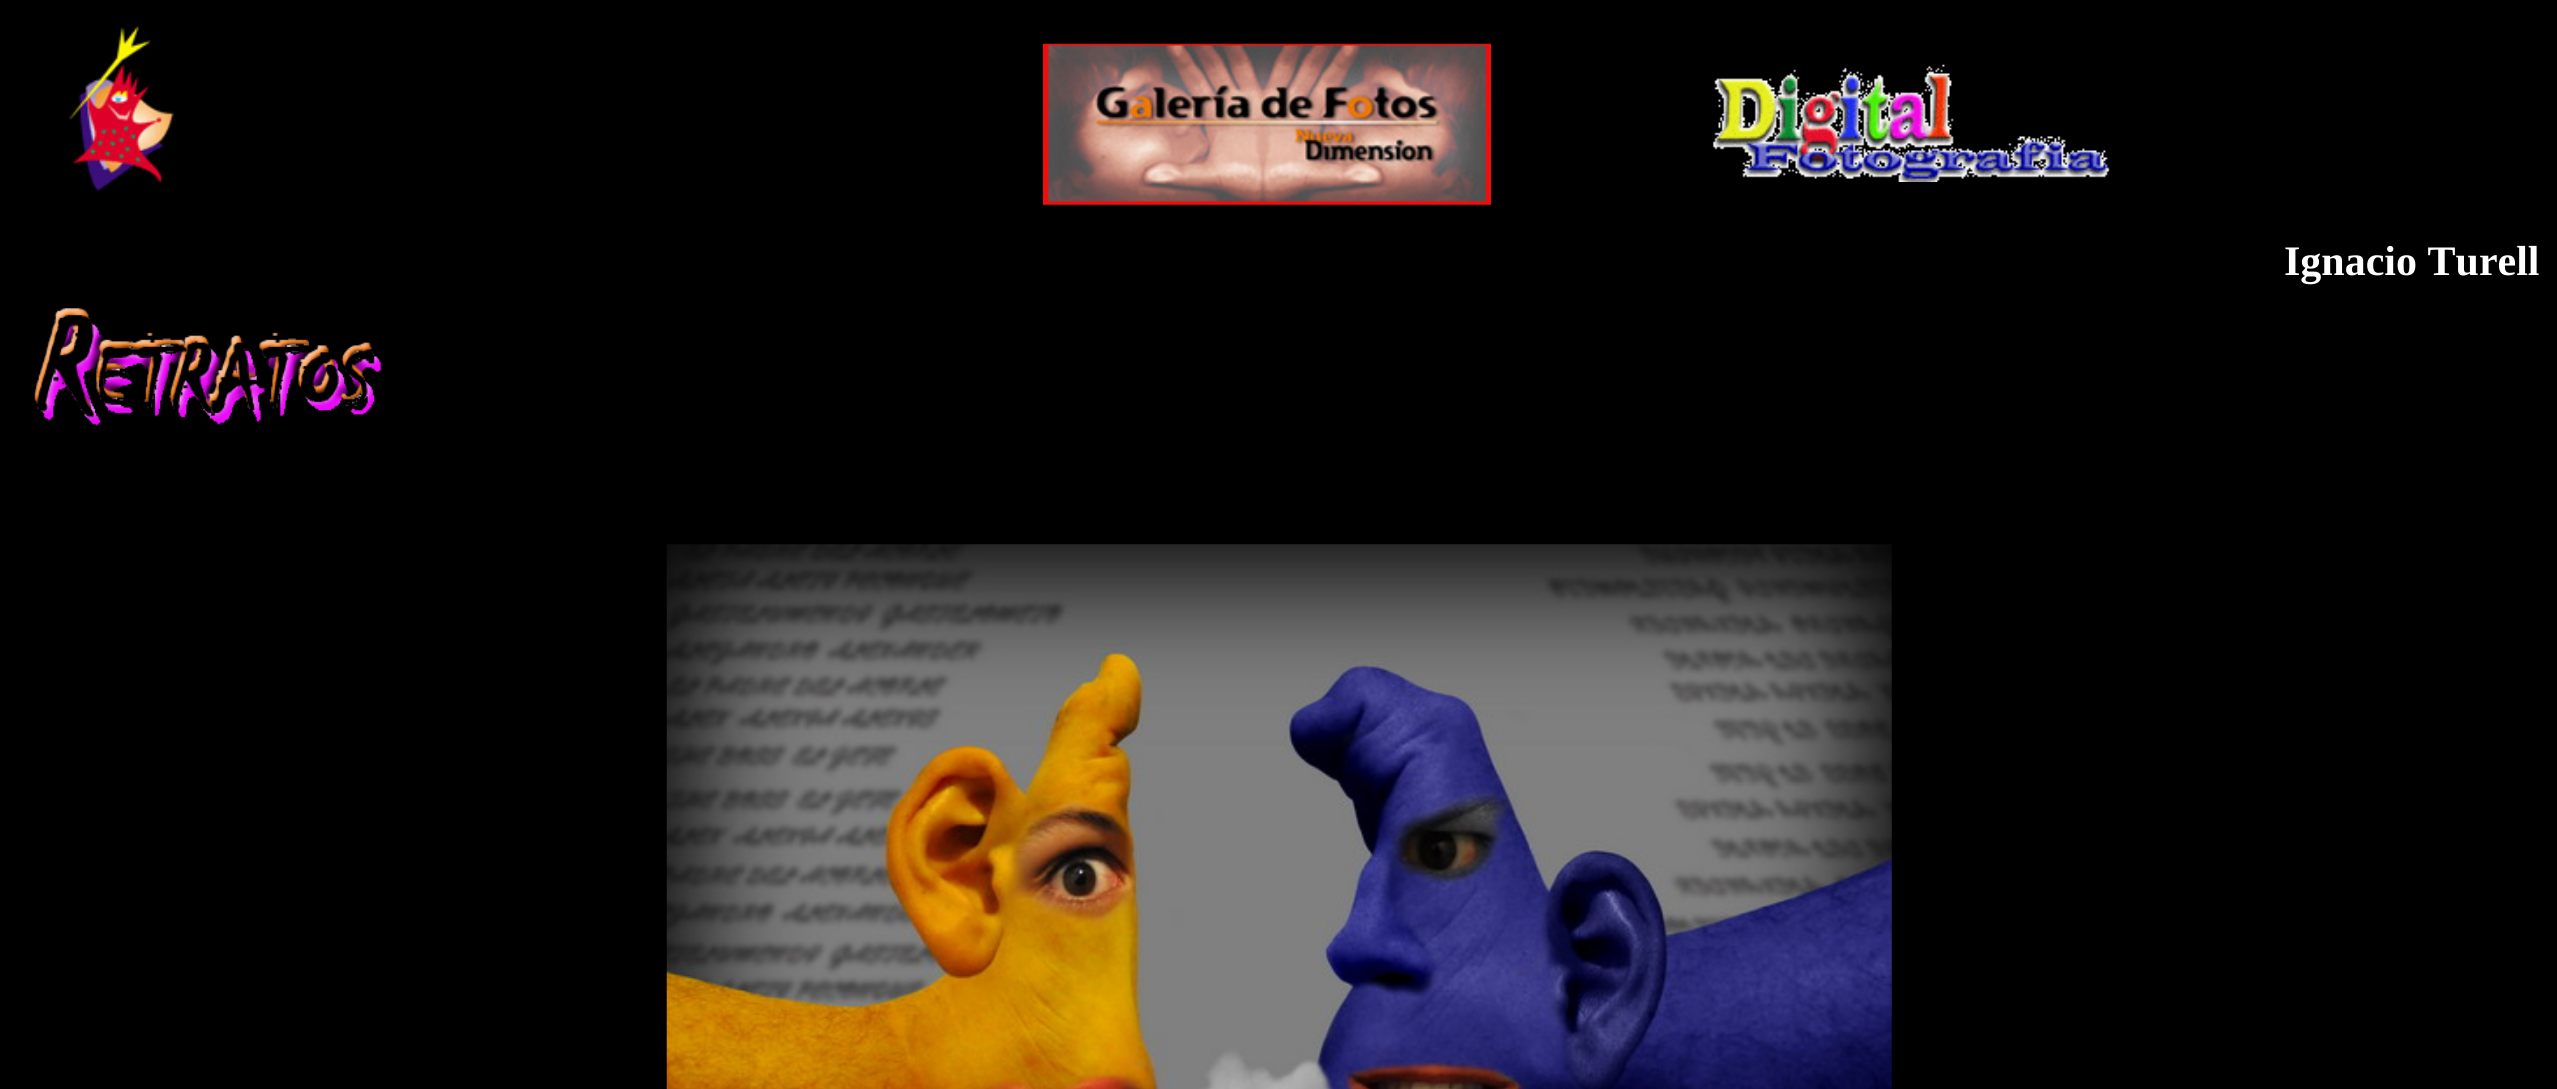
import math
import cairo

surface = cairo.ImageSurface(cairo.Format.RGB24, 2557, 1089)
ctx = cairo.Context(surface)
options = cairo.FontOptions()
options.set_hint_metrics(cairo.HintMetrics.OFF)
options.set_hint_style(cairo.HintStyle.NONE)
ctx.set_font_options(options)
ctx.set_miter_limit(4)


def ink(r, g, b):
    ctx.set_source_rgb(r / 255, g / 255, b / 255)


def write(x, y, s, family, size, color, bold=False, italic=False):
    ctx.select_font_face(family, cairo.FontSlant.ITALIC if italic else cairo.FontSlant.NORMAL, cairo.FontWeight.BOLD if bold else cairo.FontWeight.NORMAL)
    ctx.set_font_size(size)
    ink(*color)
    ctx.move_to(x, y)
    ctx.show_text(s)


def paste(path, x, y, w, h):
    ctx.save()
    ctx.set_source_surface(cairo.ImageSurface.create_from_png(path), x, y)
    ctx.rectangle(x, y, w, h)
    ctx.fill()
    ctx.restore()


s1 = dict(family="Liberation Serif", size=42, color=(255, 255, 255), bold=True)

ink(0, 0, 0)
ctx.paint()
paste("pic1.png", 68, 26, 108, 166)
paste("pic2.png", 1043, 43, 448, 162)
paste("pic3.png", 1712, 64, 398, 118)
write(2284, 275, "Ignacio Turell", **s1)
paste("pic4.png", 34, 308, 347, 118)
paste("pic5.png", 666, 544, 1226, 545)
surface.write_to_png("screenshot.png")
